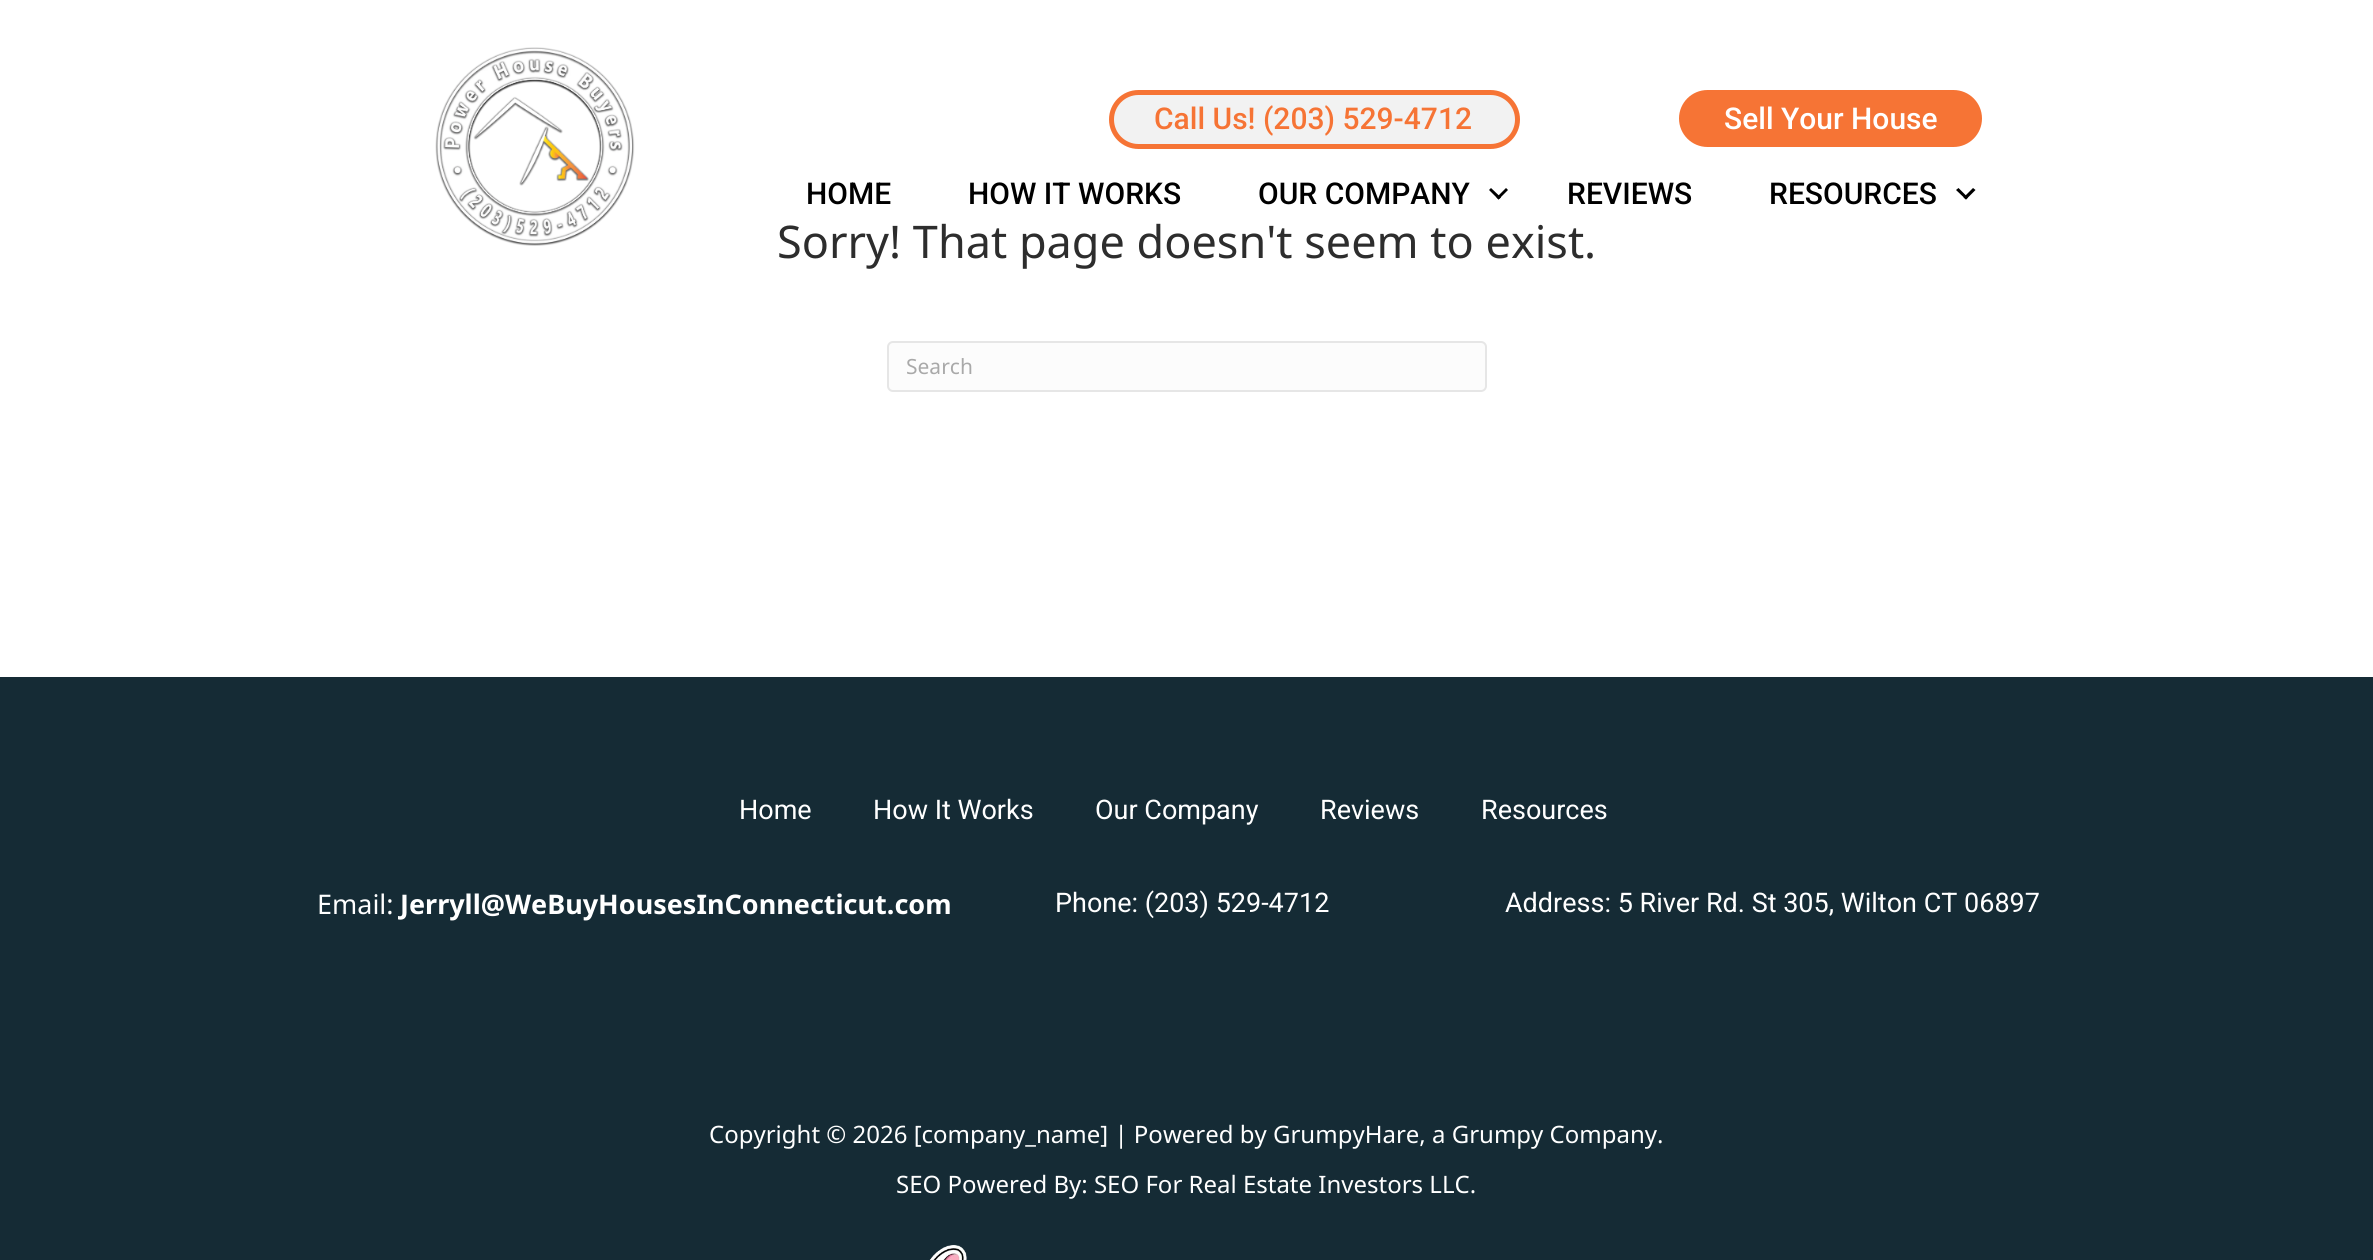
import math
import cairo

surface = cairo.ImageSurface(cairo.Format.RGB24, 2373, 1260)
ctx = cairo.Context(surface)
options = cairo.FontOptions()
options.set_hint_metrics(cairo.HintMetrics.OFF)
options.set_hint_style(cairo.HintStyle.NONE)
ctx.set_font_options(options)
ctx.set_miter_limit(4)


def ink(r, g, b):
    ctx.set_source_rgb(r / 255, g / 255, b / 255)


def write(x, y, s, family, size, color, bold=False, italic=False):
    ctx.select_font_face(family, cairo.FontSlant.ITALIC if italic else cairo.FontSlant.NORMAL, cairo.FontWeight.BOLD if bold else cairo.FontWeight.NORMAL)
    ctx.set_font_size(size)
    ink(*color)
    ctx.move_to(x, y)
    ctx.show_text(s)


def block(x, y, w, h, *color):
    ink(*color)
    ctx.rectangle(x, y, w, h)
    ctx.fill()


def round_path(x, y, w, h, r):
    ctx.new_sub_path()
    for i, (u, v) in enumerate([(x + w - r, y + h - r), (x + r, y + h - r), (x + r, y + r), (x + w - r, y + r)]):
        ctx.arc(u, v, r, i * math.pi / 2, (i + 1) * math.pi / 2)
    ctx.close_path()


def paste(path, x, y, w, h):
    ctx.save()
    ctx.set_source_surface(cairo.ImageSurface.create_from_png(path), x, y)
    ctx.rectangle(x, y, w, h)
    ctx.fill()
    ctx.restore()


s1 = dict(family="Roboto Medium", size=30, color=(246, 116, 53))
s2 = dict(family="Roboto Medium", size=30, color=(255, 255, 255))
s3 = dict(family="Roboto Medium", size=30, color=(0, 0, 0))
s4 = dict(family="Noto Sans", size=45, color=(45, 45, 45))
s5 = dict(family="Noto Sans", size=21, color=(169, 169, 169))
s6 = dict(family="Roboto", size=27, color=(255, 255, 255))
s7 = dict(family="Noto Sans", size=27, color=(255, 255, 255))
s8 = dict(family="Noto Sans", size=27, color=(255, 255, 255), bold=True)
s9 = dict(family="Noto Sans", size=24, color=(255, 255, 255))

ink(255, 255, 255)
ctx.paint()
paste("pic1.png", 435, 47, 200, 199)
ink(242, 242, 242)
round_path(1111.5, 92.5, 406, 54, 27)
ctx.fill_preserve()
ink(246, 116, 53)
ctx.set_line_width(5)
ctx.stroke()
write(1154, 129, "Call Us! (203) 529-4712", **s1)
round_path(1679, 90, 303, 57, 28.5)
ctx.fill()
write(1724, 129, "Sell Your House", **s2)
write(806, 204, "HOME", **s3)
write(968, 204, "HOW IT WORKS", **s3)
write(1258, 204, "OUR COMPANY", **s3)
ctx.new_path()
ctx.move_to(1506, 188)
ctx.line_to(1508, 190)
ctx.line_to(1498.5, 199.5)
ctx.line_to(1496.5, 197.5)
ctx.close_path()
ctx.fill()
ctx.new_path()
ctx.move_to(1491, 188)
ctx.line_to(1501, 197.5)
ctx.line_to(1498.5, 199.5)
ctx.line_to(1489, 190)
ctx.close_path()
ctx.fill()
write(1567, 204, "REVIEWS", **s3)
write(1769, 204, "RESOURCES", **s3)
ctx.new_path()
ctx.move_to(1973, 188)
ctx.line_to(1975.5, 190)
ctx.line_to(1966, 199.5)
ctx.line_to(1963.5, 197.5)
ctx.close_path()
ctx.fill()
ctx.new_path()
ctx.move_to(1958.5, 188)
ctx.line_to(1968, 197.5)
ctx.line_to(1966, 199.5)
ctx.line_to(1956, 190)
ctx.close_path()
ctx.fill()
write(777, 258, "Sorry! That page doesn't seem to exist.", **s4)
ink(252, 252, 252)
round_path(888, 342, 598, 49, 5)
ctx.fill_preserve()
ink(230, 230, 230)
ctx.set_line_width(2)
ctx.stroke()
write(906, 374, "Search", **s5)
block(0, 677, 2373, 583, 21, 43, 53)
write(739, 819, "Home", **s6)
write(873, 819, "How It Works", **s6)
write(1095, 819, "Our Company", **s6)
write(1320, 819, "Reviews", **s6)
write(1481, 819, "Resources", **s6)
write(317, 914, "Email:", **s7)
write(400, 914, "Jerryll@WeBuyHousesInConnecticut.com", **s8)
write(1055, 912, "Phone: (203) 529-4712", **s6)
write(1505, 912, "Address: 5 River Rd. St 305, Wilton CT 06897", **s6)
write(709, 1143, "Copyright © 2026 [company_name] | Powered by GrumpyHare, a Grumpy Company.", **s9)
write(896, 1193, "SEO Powered By: SEO For Real Estate Investors LLC.", **s9)
paste("pic2.png", 929, 1245, 38, 15)
surface.write_to_png("screenshot.png")
